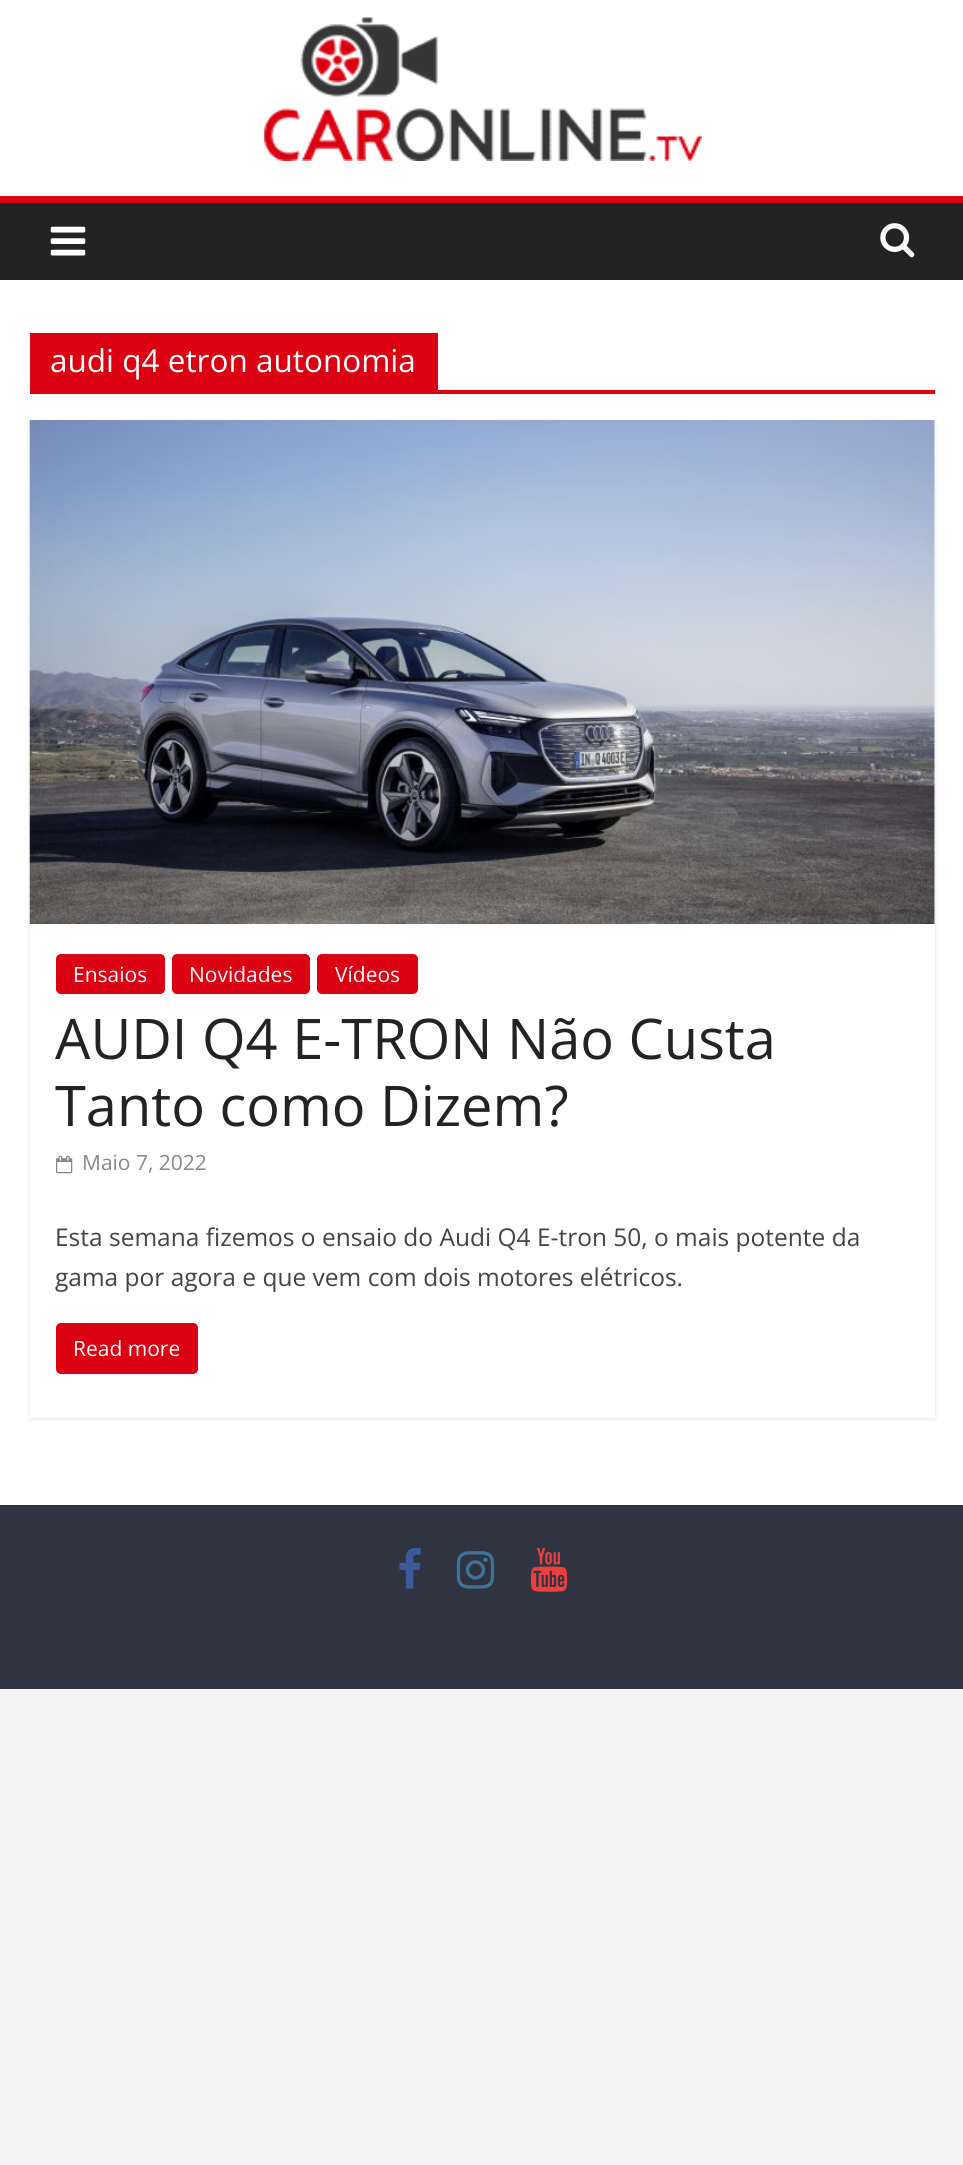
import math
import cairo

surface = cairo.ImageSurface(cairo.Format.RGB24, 963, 2165)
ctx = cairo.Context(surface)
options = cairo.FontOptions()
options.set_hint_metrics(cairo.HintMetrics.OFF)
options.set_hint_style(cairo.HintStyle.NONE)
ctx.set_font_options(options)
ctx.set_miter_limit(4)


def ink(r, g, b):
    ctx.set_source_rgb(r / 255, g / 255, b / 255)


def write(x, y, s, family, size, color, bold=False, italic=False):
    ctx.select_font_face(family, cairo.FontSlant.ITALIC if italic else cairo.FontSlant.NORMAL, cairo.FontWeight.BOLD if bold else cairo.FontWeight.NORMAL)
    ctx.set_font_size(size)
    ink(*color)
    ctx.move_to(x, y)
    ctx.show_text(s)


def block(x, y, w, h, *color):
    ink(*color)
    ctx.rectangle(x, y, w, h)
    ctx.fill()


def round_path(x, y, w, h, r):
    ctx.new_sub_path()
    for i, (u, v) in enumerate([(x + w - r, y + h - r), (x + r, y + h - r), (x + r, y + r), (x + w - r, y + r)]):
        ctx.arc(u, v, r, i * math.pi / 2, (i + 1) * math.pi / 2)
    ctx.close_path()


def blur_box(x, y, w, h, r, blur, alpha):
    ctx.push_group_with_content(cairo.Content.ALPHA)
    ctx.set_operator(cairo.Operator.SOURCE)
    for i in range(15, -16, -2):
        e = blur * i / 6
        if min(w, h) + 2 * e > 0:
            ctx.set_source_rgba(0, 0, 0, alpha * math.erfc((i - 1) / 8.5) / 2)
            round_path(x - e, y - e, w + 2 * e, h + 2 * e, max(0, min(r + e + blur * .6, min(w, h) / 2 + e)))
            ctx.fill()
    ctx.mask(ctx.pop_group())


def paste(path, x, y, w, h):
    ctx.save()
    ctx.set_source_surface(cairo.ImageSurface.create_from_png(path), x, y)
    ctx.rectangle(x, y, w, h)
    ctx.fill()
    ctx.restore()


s1 = dict(family="Open Sans", size=31.5, color=(255, 255, 255))
s2 = dict(family="Open Sans", size=21, color=(255, 255, 255))
s3 = dict(family="Open Sans", size=56, color=(35, 35, 35))
s4 = dict(family="Open Sans", size=21, color=(136, 136, 136))
s5 = dict(family="Open Sans", size=24.5, color=(68, 68, 68))

ink(244, 244, 244)
ctx.paint()
block(0, 0, 963, 196, 255, 255, 255)
paste("pic1.png", 264, 17, 438, 144)
block(0, 203, 963, 77, 35, 35, 35)
block(0, 196, 963, 7, 219, 0, 18)
paste("pic2.png", 50, 226, 36, 30)
paste("pic3.png", 880, 223, 35, 35)
block(0, 280, 963, 1225, 255, 255, 255)
block(30, 390, 905, 4, 219, 0, 18)
block(30, 333, 408, 57, 219, 0, 18)
write(50, 372, "audi q4 etron autonomia", **s1)
ctx.save()
ctx.set_fill_rule(cairo.FillRule.EVEN_ODD)
ctx.new_path()
ctx.move_to(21, 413)
ctx.line_to(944, 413)
ctx.line_to(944, 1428)
ctx.line_to(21, 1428)
ctx.close_path()
ctx.move_to(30, 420)
ctx.line_to(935, 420)
ctx.line_to(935, 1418)
ctx.line_to(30, 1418)
ctx.close_path()
ctx.clip()
ink(0, 0, 0)
blur_box(30, 422, 905, 997, 0, 2.5, 0.1)
ctx.restore()
paste("pic4.png", 29, 420, 906, 504)
ink(219, 0, 18)
round_path(56, 954, 109, 40, 5)
ctx.fill()
write(73, 982, "Ensaios", **s2)
ink(219, 0, 18)
round_path(172, 954, 138, 40, 5)
ctx.fill()
write(189, 982, "Novidades", **s2)
ink(219, 0, 18)
round_path(317, 954, 101, 40, 5)
ctx.fill()
write(335, 982, "Vídeos", **s2)
write(55, 1059, "AUDI Q4 E-TRON Não Custa", **s3)
write(55, 1126, "Tanto como Dizem?", **s3)
paste("pic5.png", 56, 1155, 17, 19)
write(82, 1170, "Maio 7, 2022", **s4)
write(55, 1246, "Esta semana fizemos o ensaio do Audi Q4 E-tron 50, o mais potente da", **s5)
write(55, 1286, "gama por agora e que vem com dois motores elétricos.", **s5)
ink(219, 0, 18)
round_path(56, 1323, 142, 51, 5)
ctx.fill()
write(73, 1356, "Read more", **s2)
block(0, 1505, 963, 184, 48, 52, 64)
paste("pic6.png", 399, 1548, 22, 41)
paste("pic7.png", 456, 1551, 39, 38)
paste("pic8.png", 530, 1548, 38, 44)
surface.write_to_png("screenshot.png")
